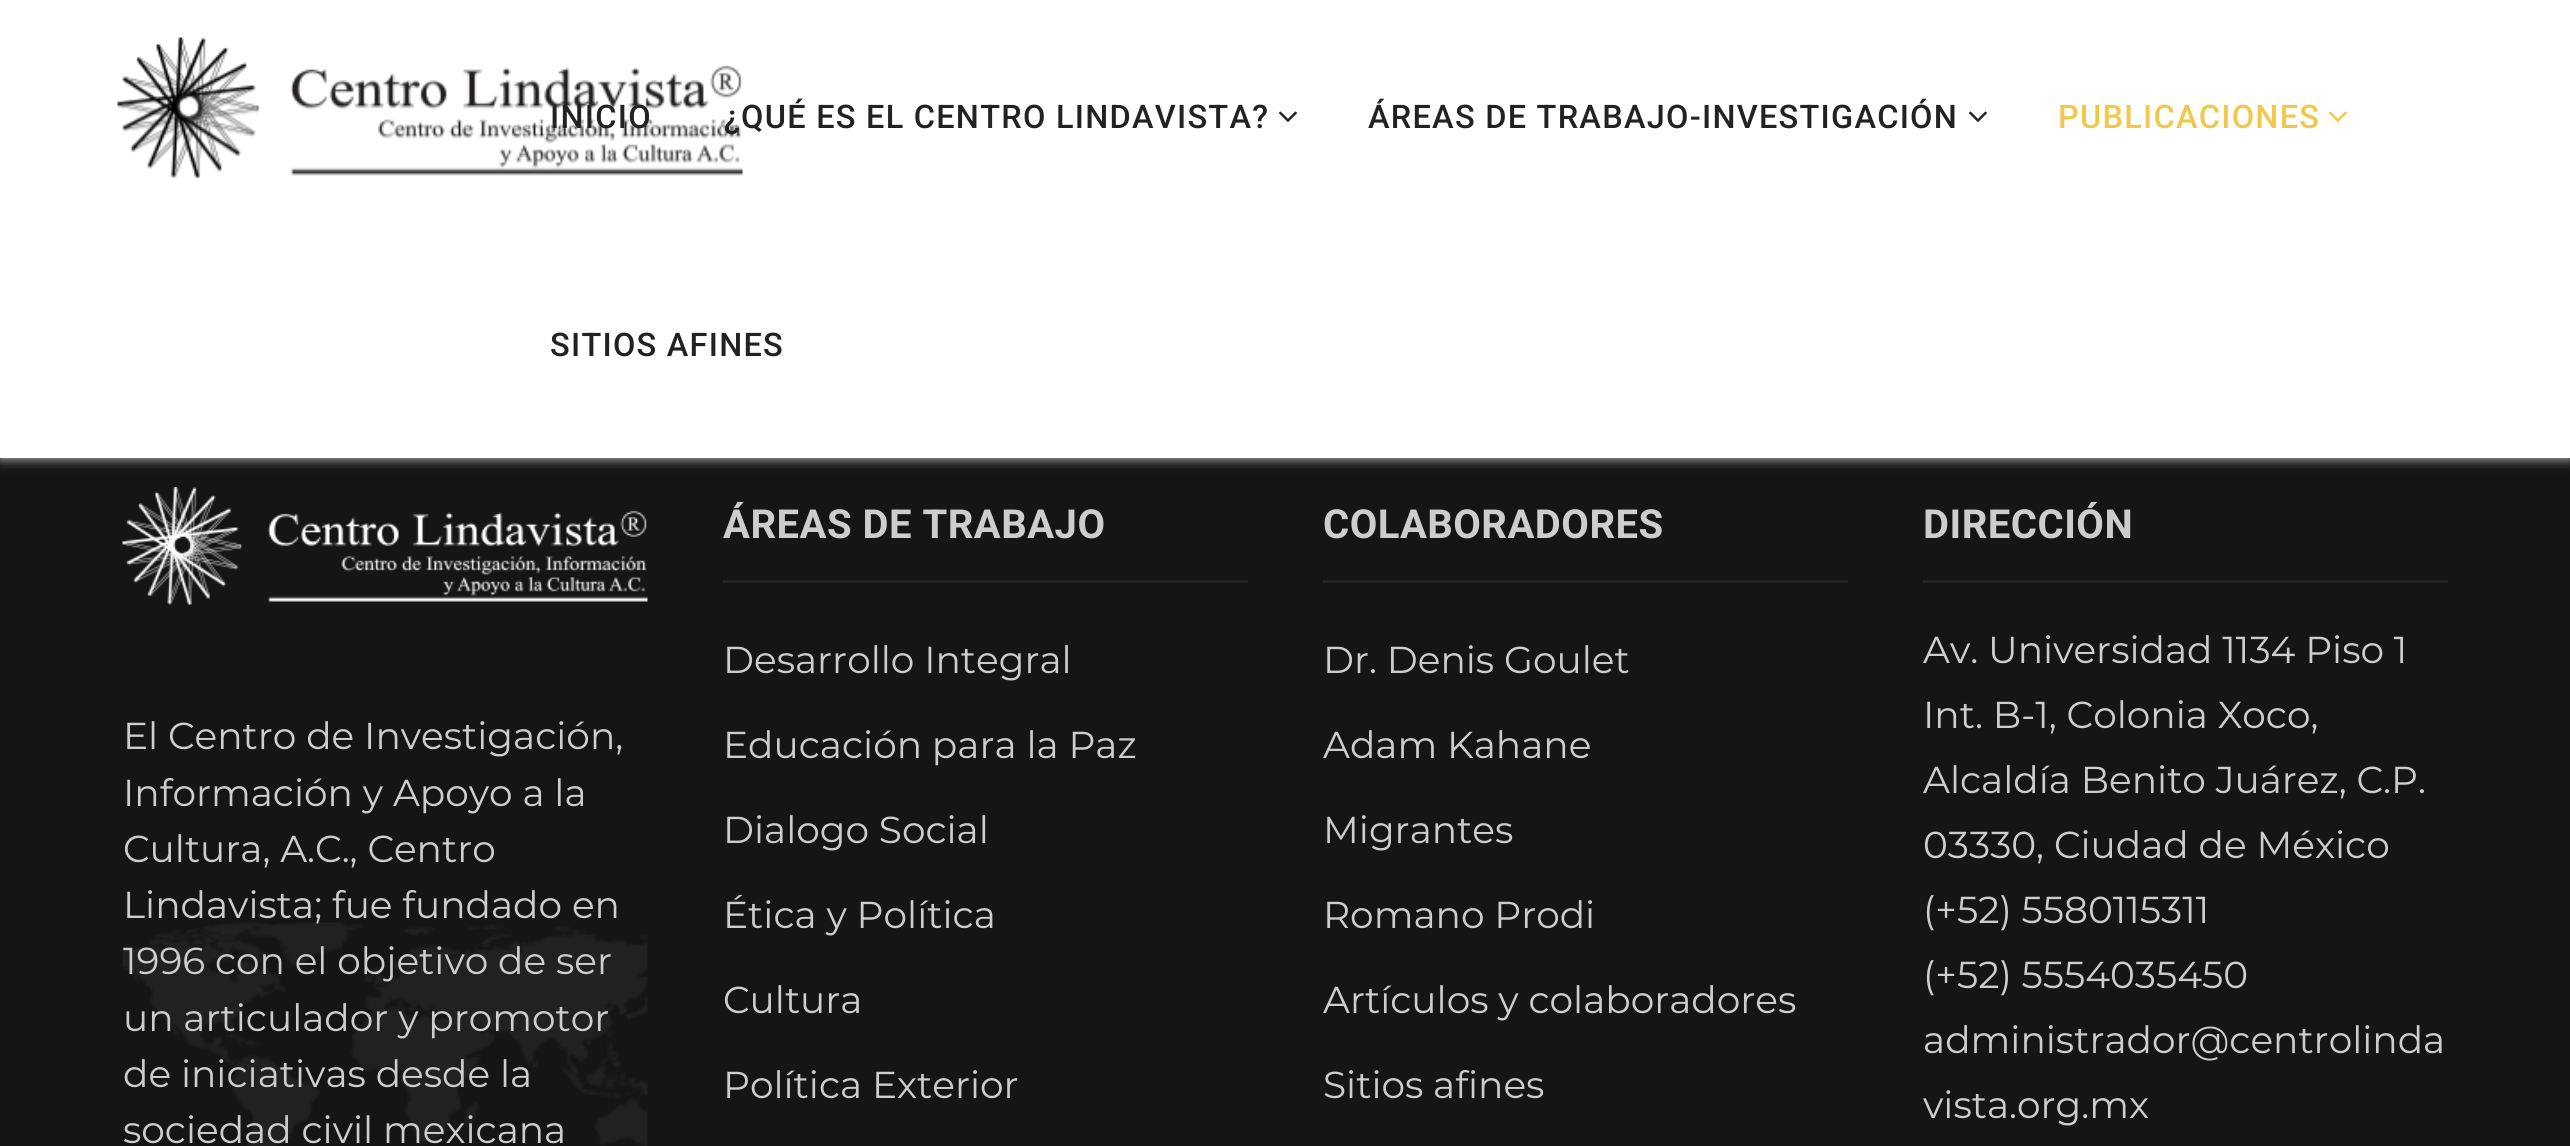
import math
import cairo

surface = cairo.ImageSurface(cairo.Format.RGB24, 2570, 1146)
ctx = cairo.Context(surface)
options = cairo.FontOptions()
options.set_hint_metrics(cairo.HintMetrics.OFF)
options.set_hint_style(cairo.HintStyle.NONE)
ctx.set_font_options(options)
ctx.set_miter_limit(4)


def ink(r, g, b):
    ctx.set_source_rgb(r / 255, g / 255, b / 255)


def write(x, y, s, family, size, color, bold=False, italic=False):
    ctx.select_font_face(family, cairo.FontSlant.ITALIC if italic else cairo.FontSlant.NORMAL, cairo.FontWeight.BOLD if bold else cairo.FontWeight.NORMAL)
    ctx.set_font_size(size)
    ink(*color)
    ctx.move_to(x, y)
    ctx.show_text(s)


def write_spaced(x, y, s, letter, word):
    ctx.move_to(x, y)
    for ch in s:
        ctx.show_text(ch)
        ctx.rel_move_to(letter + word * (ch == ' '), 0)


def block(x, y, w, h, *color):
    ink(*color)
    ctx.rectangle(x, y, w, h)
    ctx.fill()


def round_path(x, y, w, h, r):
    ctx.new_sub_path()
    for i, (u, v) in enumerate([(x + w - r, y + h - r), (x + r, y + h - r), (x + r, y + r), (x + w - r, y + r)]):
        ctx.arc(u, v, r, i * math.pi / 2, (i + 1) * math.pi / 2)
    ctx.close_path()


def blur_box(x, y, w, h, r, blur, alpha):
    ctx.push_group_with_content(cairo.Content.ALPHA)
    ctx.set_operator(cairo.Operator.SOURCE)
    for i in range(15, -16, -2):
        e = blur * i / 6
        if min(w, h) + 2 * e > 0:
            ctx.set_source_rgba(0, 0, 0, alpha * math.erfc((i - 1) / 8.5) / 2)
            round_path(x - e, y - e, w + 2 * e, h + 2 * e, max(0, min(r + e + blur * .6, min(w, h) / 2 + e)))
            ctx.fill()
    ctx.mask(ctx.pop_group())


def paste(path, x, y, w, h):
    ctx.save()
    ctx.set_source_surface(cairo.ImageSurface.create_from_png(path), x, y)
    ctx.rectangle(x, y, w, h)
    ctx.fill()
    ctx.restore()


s1 = dict(family="Montserrat Thin", size=37.5, color=(205, 205, 205))

ink(21, 21, 21)
ctx.paint()
ink(220, 220, 220)
blur_box(0, 0, 2570, 458, 0, 6, 1)
block(0, 0, 2570, 458, 255, 255, 255)
paste("pic1.png", 117, 37, 626, 141)
ctx.select_font_face("Roboto Medium")
ctx.set_font_size(32.5)
ink(34, 34, 34)
write_spaced(550, 128, "INICIO", 1.25, 0)
write_spaced(724, 128, "¿QUÉ ES EL CENTRO LINDAVISTA?", 1.25, 0)
paste("pic2.png", 1279, 111, 18, 11)
write_spaced(1368, 128, "ÁREAS DE TRABAJO-INVESTIGACIÓN", 1.25, 0)
paste("pic2.png", 1969, 111, 18, 11)
ink(240, 200, 76)
write_spaced(2058, 128, "PUBLICACIONES", 1.25, 0)
paste("pic3.png", 2329, 111, 18, 11)
ink(34, 34, 34)
write_spaced(550, 356, "SITIOS AFINES", 1.25, 0)
paste("pic4.png", 122, 487, 526, 118)
paste("pic5.png", 122, 922, 526, 224)
write(123, 749, "El Centro de Investigación,", **s1)
write(123, 806, "Información y Apoyo a la", **s1)
write(123, 862, "Cultura, A.C., Centro", **s1)
write(123, 918, "Lindavista; fue fundado en", **s1)
write(123, 974, "1996 con el objetivo de ser", **s1)
write(123, 1031, "un articulador y promotor", **s1)
write(123, 1087, "de iniciativas desde la", **s1)
write(123, 1143, "sociedad civil mexicana", **s1)
block(723, 580, 525, 3, 35, 35, 35)
ctx.select_font_face("Roboto", cairo.FontSlant.NORMAL, cairo.FontWeight.BOLD)
ctx.set_font_size(40)
ink(205, 205, 205)
write_spaced(723, 538, "ÁREAS DE TRABAJO", 0.5, 0)
write(723, 673, "Desarrollo Integral", **s1)
write(723, 758, "Educación para la Paz", **s1)
write(723, 843, "Dialogo Social", **s1)
write(723, 928, "Ética y Política", **s1)
write(723, 1013, "Cultura", **s1)
write(723, 1098, "Política Exterior", **s1)
block(1323, 580, 525, 3, 35, 35, 35)
ctx.select_font_face("Roboto", cairo.FontSlant.NORMAL, cairo.FontWeight.BOLD)
ctx.set_font_size(40)
ink(205, 205, 205)
write_spaced(1323, 538, "COLABORADORES", 0.5, 0)
write(1323, 673, "Dr. Denis Goulet", **s1)
write(1323, 758, "Adam Kahane", **s1)
write(1323, 843, "Migrantes", **s1)
write(1323, 928, "Romano Prodi", **s1)
write(1323, 1013, "Artículos y colaboradores", **s1)
write(1323, 1098, "Sitios afines", **s1)
block(1923, 580, 525, 3, 35, 35, 35)
ctx.select_font_face("Roboto", cairo.FontSlant.NORMAL, cairo.FontWeight.BOLD)
ctx.set_font_size(40)
ink(205, 205, 205)
write_spaced(1923, 538, "DIRECCIÓN", 0.5, 0)
write(1923, 663, "Av. Universidad 1134 Piso 1", **s1)
write(1923, 728, "Int. B-1, Colonia Xoco,", **s1)
write(1923, 793, "Alcaldía Benito Juárez, C.P.", **s1)
write(1923, 858, "03330, Ciudad de México", **s1)
write(1923, 923, "(+52) 5580115311", **s1)
write(1923, 988, "(+52) 5554035450", **s1)
write(1923, 1053, "administrador@centrolinda", **s1)
write(1923, 1118, "vista.org.mx", **s1)
surface.write_to_png("screenshot.png")
